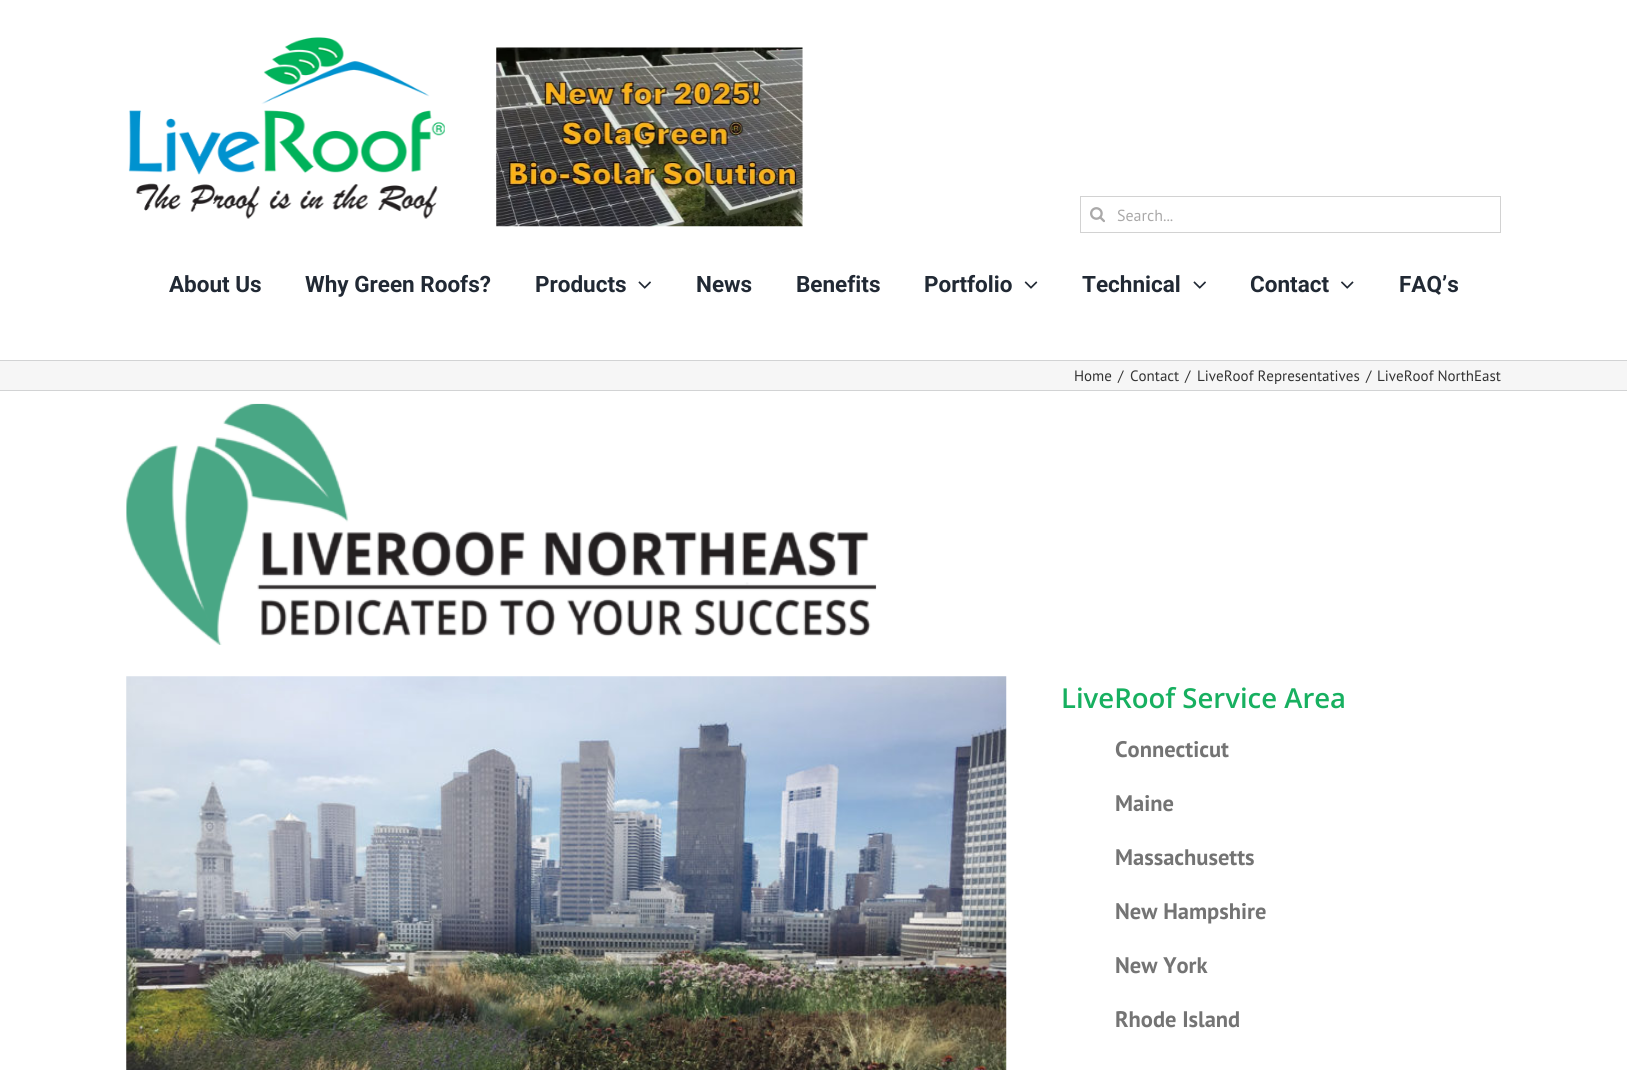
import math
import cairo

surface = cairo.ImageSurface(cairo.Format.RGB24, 1627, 1070)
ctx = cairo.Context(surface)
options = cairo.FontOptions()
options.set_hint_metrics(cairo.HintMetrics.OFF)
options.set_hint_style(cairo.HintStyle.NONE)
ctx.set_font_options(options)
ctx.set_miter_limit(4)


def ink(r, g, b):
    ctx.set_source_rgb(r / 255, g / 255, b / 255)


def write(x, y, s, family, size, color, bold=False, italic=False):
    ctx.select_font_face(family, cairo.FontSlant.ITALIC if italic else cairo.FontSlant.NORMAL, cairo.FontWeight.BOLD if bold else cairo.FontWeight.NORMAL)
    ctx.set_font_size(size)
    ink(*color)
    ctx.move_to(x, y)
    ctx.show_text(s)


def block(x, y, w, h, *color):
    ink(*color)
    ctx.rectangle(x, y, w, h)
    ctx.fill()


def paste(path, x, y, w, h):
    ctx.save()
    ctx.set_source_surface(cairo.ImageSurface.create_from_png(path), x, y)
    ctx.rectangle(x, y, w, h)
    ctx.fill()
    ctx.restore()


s1 = dict(family="PT Sans", size=16, color=(170, 169, 169))
s2 = dict(family="Roboto", size=22.5, color=(33, 41, 52), bold=True)
s3 = dict(family="PT Sans", size=15, color=(51, 51, 51))
s4 = dict(family="Open Sans SemiBold", size=27.5, color=(23, 176, 96))
s5 = dict(family="PT Sans", size=22.5, color=(116, 116, 116), bold=True)

ink(255, 255, 255)
ctx.paint()
paste("pic1.png", 128, 37, 317, 182)
paste("pic2.png", 496, 47, 307, 180)
ctx.rectangle(1080.5, 196.5, 420, 36)
ink(210, 210, 210)
ctx.set_line_width(1)
ctx.stroke()
paste("pic3.png", 1090, 207, 15, 16)
write(1117, 221, "Search...", **s1)
write(169, 292, "About Us", **s2)
write(305, 292, "Why Green Roofs?", **s2)
write(535, 292, "Products", **s2)
paste("pic4.png", 638, 281, 13, 8)
write(696, 292, "News", **s2)
write(796, 292, "Benefits", **s2)
write(924, 292, "Portfolio", **s2)
paste("pic5.png", 1024, 281, 14, 8)
write(1082, 292, "Technical", **s2)
paste("pic4.png", 1193, 281, 13, 8)
write(1250, 292, "Contact", **s2)
paste("pic6.png", 1341, 281, 13, 8)
write(1399, 292, "FAQ’s", **s2)
block(0, 361, 1627, 29, 246, 246, 246)
block(0, 360, 1627, 1, 210, 211, 212)
block(0, 390, 1627, 1, 210, 211, 212)
write(1074, 381, "Home", **s3)
write(1118, 381, "/", **s3)
write(1130, 381, "Contact", **s3)
write(1185, 381, "/", **s3)
write(1197, 381, "LiveRoof Representatives", **s3)
write(1366, 381, "/", **s3)
write(1377, 381, "LiveRoof NorthEast", **s3)
paste("pic7.png", 126, 403, 751, 242)
paste("pic8.png", 126, 676, 881, 394)
write(1061, 708, "LiveRoof Service Area", **s4)
write(1115, 757, "Connecticut", **s5)
write(1115, 811, "Maine", **s5)
write(1115, 865, "Massachusetts", **s5)
write(1115, 919, "New Hampshire", **s5)
write(1115, 973, "New York", **s5)
write(1115, 1027, "Rhode Island", **s5)
surface.write_to_png("screenshot.png")
